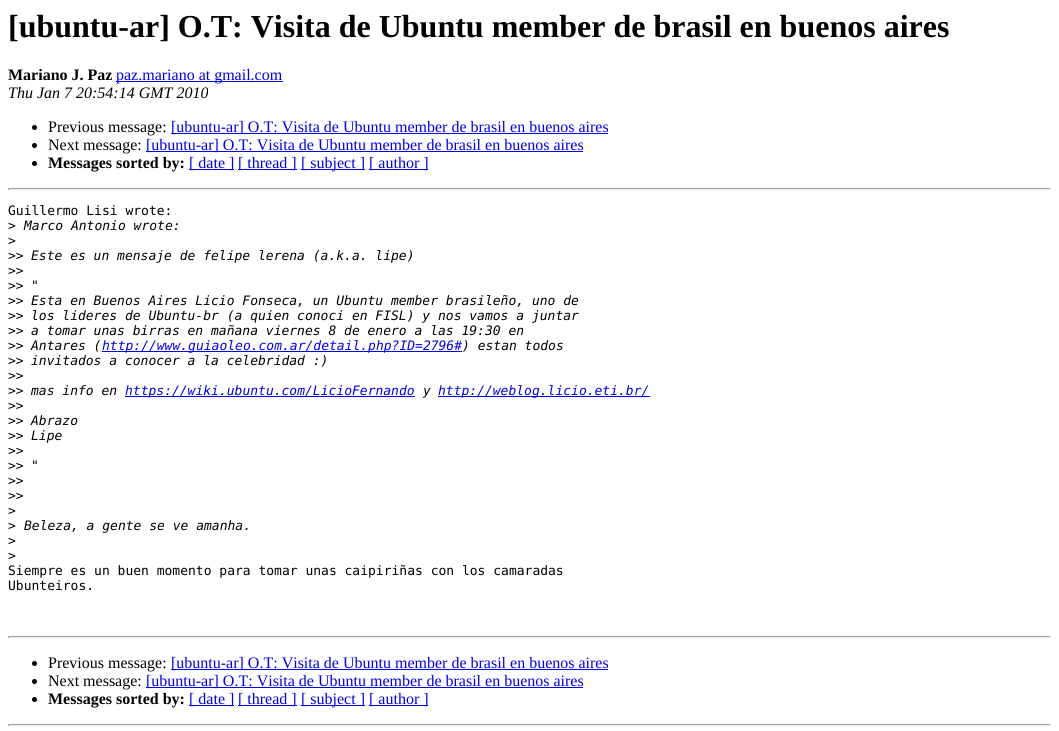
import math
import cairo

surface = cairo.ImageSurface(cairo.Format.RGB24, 1059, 731)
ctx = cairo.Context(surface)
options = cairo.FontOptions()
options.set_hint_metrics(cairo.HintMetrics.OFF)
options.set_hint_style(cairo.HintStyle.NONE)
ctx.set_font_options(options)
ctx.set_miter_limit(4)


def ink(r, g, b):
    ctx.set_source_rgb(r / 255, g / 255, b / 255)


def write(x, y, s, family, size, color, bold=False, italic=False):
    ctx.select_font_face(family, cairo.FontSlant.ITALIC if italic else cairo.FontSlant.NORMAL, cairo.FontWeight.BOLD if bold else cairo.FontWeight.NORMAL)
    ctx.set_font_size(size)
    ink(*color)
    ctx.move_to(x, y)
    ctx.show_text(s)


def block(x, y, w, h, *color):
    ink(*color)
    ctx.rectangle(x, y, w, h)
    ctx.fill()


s1 = dict(family="Liberation Serif", size=32, color=(0, 0, 0), bold=True)
s2 = dict(family="Liberation Serif", size=16, color=(0, 0, 0), bold=True)
s3 = dict(family="Liberation Serif", size=16, color=(0, 0, 238))
s4 = dict(family="Liberation Serif", size=16, color=(0, 0, 0), italic=True)
s5 = dict(family="Liberation Serif", size=16, color=(0, 0, 0))
s6 = dict(family="DejaVu Sans Mono", size=13, color=(0, 0, 0))
s7 = dict(family="DejaVu Sans Mono", size=13, color=(0, 0, 0), italic=True)
s8 = dict(family="DejaVu Sans Mono", size=13, color=(0, 0, 238), italic=True)

ink(255, 255, 255)
ctx.paint()
write(8, 37, "[ubuntu-ar] O.T: Visita de Ubuntu member de brasil en buenos aires", **s1)
write(8, 80, "Mariano J. Paz", **s2)
block(116, 81, 167, 1, 0, 0, 238)
write(116, 80, "paz.mariano at gmail.com", **s3)
write(8, 98, "Thu Jan 7 20:54:14 GMT 2010", **s4)
ctx.new_path()
ctx.arc(34.5, 127.5, 2.5, 0, 2 * math.pi)
ctx.fill()
write(48, 132, "Previous message:", **s5)
block(171, 133, 437, 1, 0, 0, 238)
write(171, 132, "[ubuntu-ar] O.T: Visita de Ubuntu member de brasil en buenos aires", **s3)
ink(0, 0, 0)
ctx.new_path()
ctx.arc(34.5, 145.5, 2.5, 0, 2 * math.pi)
ctx.fill()
write(48, 150, "Next message:", **s5)
block(146, 151, 437, 1, 0, 0, 238)
write(146, 150, "[ubuntu-ar] O.T: Visita de Ubuntu member de brasil en buenos aires", **s3)
ink(0, 0, 0)
ctx.new_path()
ctx.arc(34.5, 163.5, 2.5, 0, 2 * math.pi)
ctx.fill()
write(48, 168, "Messages sorted by:", **s2)
block(189, 169, 45, 1, 0, 0, 238)
write(189, 168, "[ date ]", **s3)
block(238, 169, 59, 1, 0, 0, 238)
write(238, 168, "[ thread ]", **s3)
block(301, 169, 64, 1, 0, 0, 238)
write(301, 168, "[ subject ]", **s3)
block(369, 169, 59, 1, 0, 0, 238)
write(369, 168, "[ author ]", **s3)
block(8, 188, 1043, 1, 159, 159, 159)
block(1050, 188, 1, 2, 238, 238, 238)
block(8, 189, 1043, 1, 238, 238, 238)
block(8, 188, 1, 2, 159, 159, 159)
write(8, 215, "Guillermo Lisi wrote:", **s6)
write(8, 230, ">", **s6)
write(24, 230, "Marco Antonio wrote:", **s7)
write(8, 245, ">", **s6)
write(8, 260, ">>", **s6)
write(31, 260, "Este es un mensaje de felipe lerena (a.k.a. lipe)", **s7)
write(8, 275, ">>", **s6)
write(8, 290, ">>", **s6)
write(31, 290, "\"", **s7)
write(8, 305, ">>", **s6)
write(31, 305, "Esta en Buenos Aires Licio Fonseca, un Ubuntu member brasileño, uno de", **s7)
write(8, 320, ">>", **s6)
write(31, 320, "los lideres de Ubuntu-br (a quien conoci en FISL) y nos vamos a juntar", **s7)
write(8, 335, ">>", **s6)
write(31, 335, "a tomar unas birras en mañana viernes 8 de enero a las 19:30 en", **s7)
write(8, 350, ">>", **s6)
write(31, 350, "Antares (", **s7)
block(102, 351, 360, 1, 0, 0, 238)
write(102, 350, "http://www.guiaoleo.com.ar/detail.php?ID=2796#", **s8)
write(462, 350, ") estan todos", **s7)
write(8, 365, ">>", **s6)
write(31, 365, "invitados a conocer a la celebridad :)", **s7)
write(8, 380, ">>", **s6)
write(8, 395, ">>", **s6)
write(31, 395, "mas info en", **s7)
block(125, 396, 290, 1, 0, 0, 238)
write(125, 395, "https://wiki.ubuntu.com/LicioFernando", **s8)
write(423, 395, "y", **s7)
block(438, 396, 212, 1, 0, 0, 238)
write(438, 395, "http://weblog.licio.eti.br/", **s8)
write(8, 410, ">>", **s6)
write(8, 425, ">>", **s6)
write(31, 425, "Abrazo", **s7)
write(8, 440, ">>", **s6)
write(31, 440, "Lipe", **s7)
write(8, 455, ">>", **s6)
write(8, 470, ">>", **s6)
write(31, 470, "\"", **s7)
write(8, 485, ">>", **s6)
write(8, 500, ">>", **s6)
write(8, 515, ">", **s6)
write(8, 530, ">", **s6)
write(24, 530, "Beleza, a gente se ve amanha.", **s7)
write(8, 545, ">", **s6)
write(8, 560, ">", **s6)
write(8, 575, "Siempre es un buen momento para tomar unas caipiriñas con los camaradas", **s6)
write(8, 590, "Ubunteiros.", **s6)
block(8, 636, 1043, 1, 159, 159, 159)
block(1050, 636, 1, 2, 238, 238, 238)
block(8, 637, 1043, 1, 238, 238, 238)
block(8, 636, 1, 2, 159, 159, 159)
ink(0, 0, 0)
ctx.new_path()
ctx.arc(34.5, 663.5, 2.5, 0, 2 * math.pi)
ctx.fill()
write(48, 668, "Previous message:", **s5)
block(171, 669, 437, 1, 0, 0, 238)
write(171, 668, "[ubuntu-ar] O.T: Visita de Ubuntu member de brasil en buenos aires", **s3)
ink(0, 0, 0)
ctx.new_path()
ctx.arc(34.5, 681.5, 2.5, 0, 2 * math.pi)
ctx.fill()
write(48, 686, "Next message:", **s5)
block(146, 687, 437, 1, 0, 0, 238)
write(146, 686, "[ubuntu-ar] O.T: Visita de Ubuntu member de brasil en buenos aires", **s3)
ink(0, 0, 0)
ctx.new_path()
ctx.arc(34.5, 699.5, 2.5, 0, 2 * math.pi)
ctx.fill()
write(48, 704, "Messages sorted by:", **s2)
block(189, 705, 45, 1, 0, 0, 238)
write(189, 704, "[ date ]", **s3)
block(238, 705, 59, 1, 0, 0, 238)
write(238, 704, "[ thread ]", **s3)
block(301, 705, 64, 1, 0, 0, 238)
write(301, 704, "[ subject ]", **s3)
block(369, 705, 59, 1, 0, 0, 238)
write(369, 704, "[ author ]", **s3)
block(8, 724, 1043, 1, 159, 159, 159)
block(1050, 724, 1, 2, 238, 238, 238)
block(8, 725, 1043, 1, 238, 238, 238)
block(8, 724, 1, 2, 159, 159, 159)
surface.write_to_png("screenshot.png")
